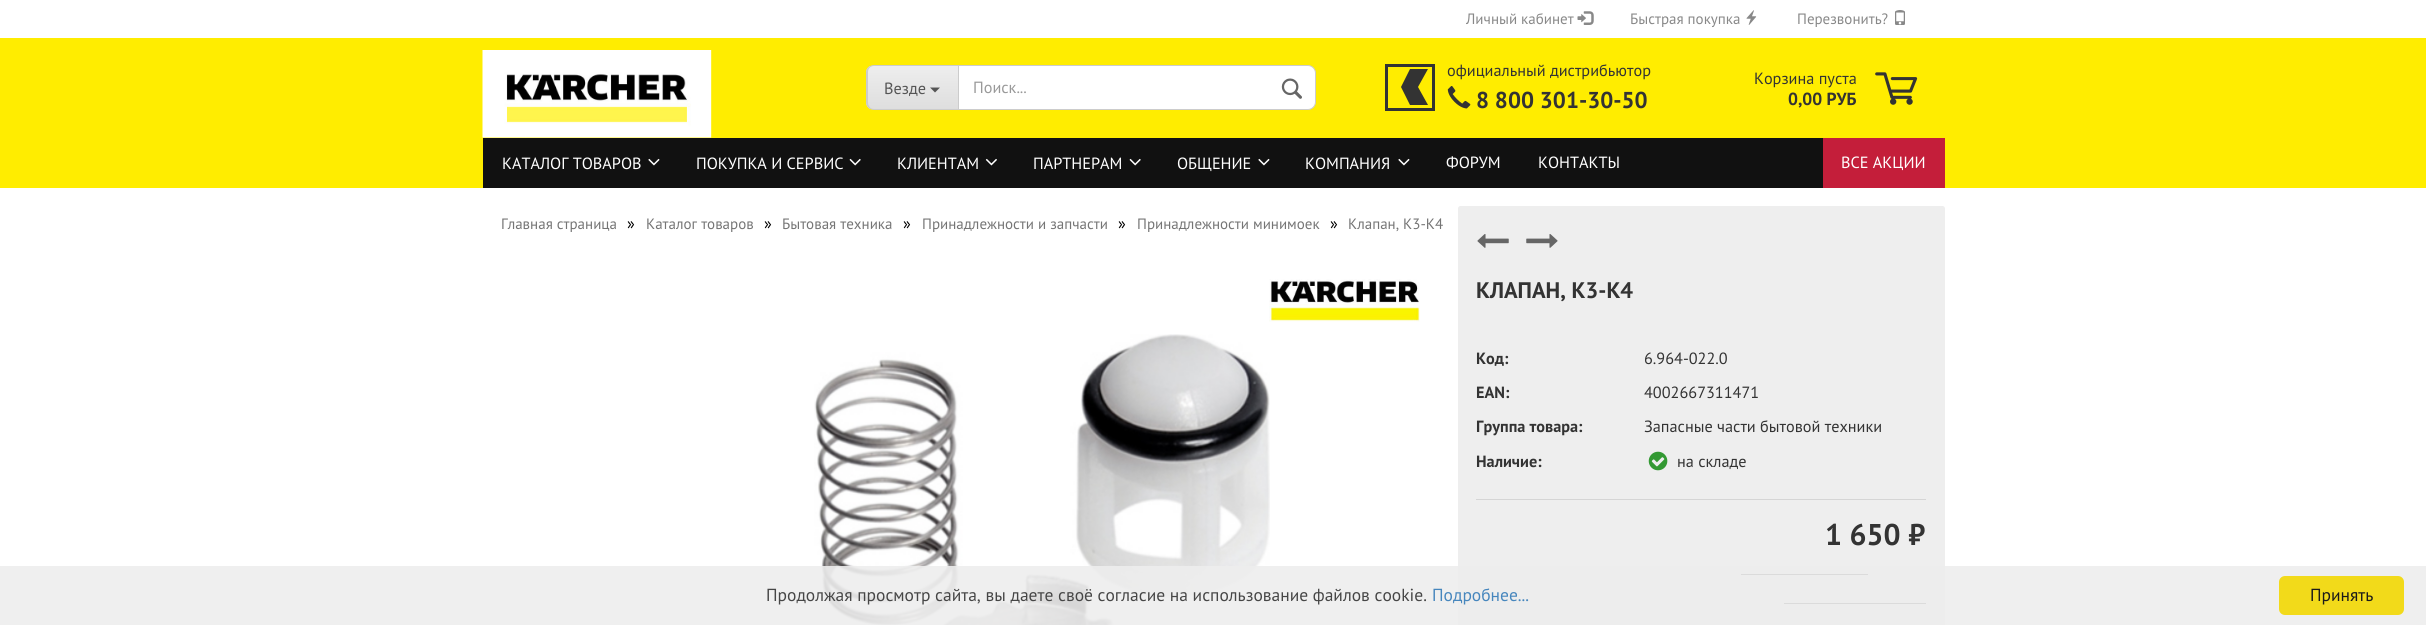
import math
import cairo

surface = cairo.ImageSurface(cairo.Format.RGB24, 2426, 625)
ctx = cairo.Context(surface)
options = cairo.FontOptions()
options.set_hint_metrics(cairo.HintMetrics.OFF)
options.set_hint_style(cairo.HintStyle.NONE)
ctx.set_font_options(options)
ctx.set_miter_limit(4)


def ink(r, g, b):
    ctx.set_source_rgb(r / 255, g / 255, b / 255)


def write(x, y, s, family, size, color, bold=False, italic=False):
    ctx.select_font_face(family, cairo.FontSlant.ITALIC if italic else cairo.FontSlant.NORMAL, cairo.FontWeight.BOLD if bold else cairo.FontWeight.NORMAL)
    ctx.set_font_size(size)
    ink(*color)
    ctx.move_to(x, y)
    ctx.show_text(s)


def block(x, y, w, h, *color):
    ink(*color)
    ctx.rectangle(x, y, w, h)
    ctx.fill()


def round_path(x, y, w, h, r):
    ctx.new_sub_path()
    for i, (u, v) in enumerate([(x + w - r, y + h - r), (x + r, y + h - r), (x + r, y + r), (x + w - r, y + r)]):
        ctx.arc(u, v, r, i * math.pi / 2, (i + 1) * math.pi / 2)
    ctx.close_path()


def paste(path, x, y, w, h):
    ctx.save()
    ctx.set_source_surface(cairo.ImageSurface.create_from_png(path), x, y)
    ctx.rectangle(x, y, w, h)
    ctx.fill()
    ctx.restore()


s1 = dict(family="PT Sans", size=15, color=(136, 136, 136))
s2 = dict(family="PT Sans", size=16.25, color=(85, 85, 85))
s3 = dict(family="PT Sans", size=16.25, color=(153, 153, 153))
s4 = dict(family="PT Sans", size=16.25, color=(51, 51, 51))
s5 = dict(family="PT Sans", size=23, color=(51, 51, 51), bold=True)
s6 = dict(family="PT Sans", size=17.5, color=(51, 51, 51), bold=True)
s7 = dict(family="PT Sans", size=16.25, color=(255, 255, 255))
s8 = dict(family="PT Sans", size=15, color=(117, 117, 117))
s9 = dict(family="PT Sans", size=16.25, color=(0, 0, 0))
s10 = dict(family="PT Sans", size=22.5, color=(51, 51, 51), bold=True)
s11 = dict(family="PT Sans", size=16.25, color=(51, 51, 51), bold=True)
s12 = dict(family="PT Sans", size=30, color=(51, 51, 51), bold=True)
s13 = dict(family="PT Sans", size=17.5, color=(70, 70, 70))
s14 = dict(family="PT Sans", size=17.5, color=(70, 134, 189))
s15 = dict(family="PT Sans", size=17.5, color=(26, 26, 26))

ink(255, 255, 255)
ctx.paint()
block(0, 38, 2426, 150, 255, 237, 0)
write(1466, 24, "Личный кабинет", **s1)
paste("pic1.png", 1577, 11, 17, 14)
write(1630, 24, "Быстрая покупка", **s1)
paste("pic2.png", 1746, 10, 11, 15)
write(1797, 24, "Перезвонить?", **s1)
paste("pic3.png", 1895, 10, 10, 15)
paste("pic4.png", 482, 50, 230, 88)
ctx.save()
ctx.new_path()
ctx.move_to(874, 65)
ctx.line_to(958, 65)
ctx.line_to(958, 110)
ctx.line_to(874, 110)
ctx.curve_to(869.5, 110, 866, 106.5, 866, 102)
ctx.line_to(866, 73)
ctx.curve_to(866, 68.5, 869.5, 65, 874, 65)
ctx.close_path()
ctx.clip()
gradient = cairo.LinearGradient(913, 66, 913, 109)
gradient.add_color_stop_rgba(0, 0.933, 0.933, 0.933, 1)
gradient.add_color_stop_rgba(1, 0.871, 0.871, 0.871, 1)
ctx.set_source(gradient)
ctx.rectangle(866, 66, 92, 43)
ctx.fill()
ctx.restore()
ink(204, 204, 204)
ctx.set_fill_rule(cairo.FillRule.EVEN_ODD)
ctx.new_path()
ctx.move_to(874, 65)
ctx.line_to(958, 65)
ctx.line_to(958, 110)
ctx.line_to(874, 110)
ctx.curve_to(870, 110, 866, 107, 866, 102)
ctx.line_to(866, 72)
ctx.curve_to(866, 68, 870, 65, 874, 65)
ctx.close_path()
ctx.move_to(874, 66)
ctx.line_to(958, 66)
ctx.line_to(958, 109)
ctx.line_to(874, 109)
ctx.curve_to(870, 109, 868, 106, 868, 102)
ctx.line_to(868, 72)
ctx.curve_to(868, 69, 870, 66, 874, 66)
ctx.close_path()
ctx.fill()
write(884, 94, "Везде", **s2)
ctx.set_fill_rule(cairo.FillRule.WINDING)
ctx.new_path()
ctx.move_to(930, 87.5)
ctx.line_to(940, 87.5)
ctx.line_to(935, 92.5)
ctx.close_path()
ctx.fill()
ink(255, 255, 255)
ctx.new_path()
ctx.move_to(958.5, 65.5)
ctx.line_to(1308, 65.5)
ctx.curve_to(1312, 65.5, 1315.5, 69, 1315.5, 73)
ctx.line_to(1315.5, 102)
ctx.curve_to(1315.5, 106, 1312, 109.5, 1308, 109.5)
ctx.line_to(958.5, 109.5)
ctx.close_path()
ctx.fill_preserve()
ink(204, 204, 204)
ctx.set_line_width(1)
ctx.stroke()
write(973, 93, "Поиск...", **s3)
paste("pic5.png", 1281, 78, 21, 21)
ink(51, 51, 51)
ctx.new_path()
ctx.move_to(1385, 64)
ctx.line_to(1385, 111)
ctx.line_to(1435, 111)
ctx.line_to(1435, 64)
ctx.move_to(1432, 108)
ctx.line_to(1388, 108)
ctx.line_to(1388, 67)
ctx.line_to(1432, 67)
ctx.close_path()
ctx.move_to(1428, 105)
ctx.line_to(1418, 87)
ctx.line_to(1428, 69)
ctx.line_to(1410, 69)
ctx.line_to(1401, 87)
ctx.line_to(1410, 105)
ctx.close_path()
ctx.fill()
write(1447, 76, "официальный дистрибьютор", **s4)
paste("pic6.png", 1447, 86, 24, 23)
write(1476, 108, "8 800 301-30-50", **s5)
write(1754, 84, "Корзина пуста", **s4)
write(1788, 105, "0,00 РУБ", **s6)
paste("pic7.png", 1875, 72, 43, 33)
block(483, 138, 1340, 50, 17, 17, 17)
write(502, 169, "КАТАЛОГ ТОВАРОВ", **s7)
paste("pic8.png", 648, 158, 12, 8)
write(696, 169, "ПОКУПКА И СЕРВИС", **s7)
paste("pic9.png", 849, 158, 12, 8)
write(897, 169, "КЛИЕНТАМ", **s7)
paste("pic10.png", 985, 158, 12, 8)
write(1033, 169, "ПАРТНЕРАМ", **s7)
paste("pic9.png", 1129, 158, 12, 8)
write(1177, 169, "ОБЩЕНИЕ", **s7)
paste("pic8.png", 1258, 158, 12, 8)
write(1305, 169, "КОМПАНИЯ", **s7)
paste("pic8.png", 1398, 158, 12, 8)
write(1446, 168, "ФОРУМ", **s7)
write(1538, 168, "КОНТАКТЫ", **s7)
block(1823, 138, 122, 50, 196, 30, 58)
write(1841, 168, "ВСЕ АКЦИИ", **s7)
write(501, 229, "Главная страница", **s8)
write(627, 229, "»", **s9)
write(646, 229, "Каталог товаров", **s8)
write(764, 229, "»", **s9)
write(782, 229, "Бытовая техника", **s8)
write(903, 229, "»", **s9)
write(922, 229, "Принадлежности и запчасти", **s8)
write(1118, 229, "»", **s9)
write(1137, 229, "Принадлежности минимоек", **s8)
write(1330, 229, "»", **s9)
write(1348, 229, "Клапан, K3-K4", **s8)
paste("pic11.png", 1269, 279, 151, 43)
paste("pic12.png", 814, 334, 456, 291)
ink(238, 238, 238)
round_path(1458, 206, 487, 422, 2.5)
ctx.fill()
paste("pic13.png", 1477, 234, 32, 14)
paste("pic14.png", 1526, 234, 32, 14)
write(1476, 298, "КЛАПАН, K3-K4", **s10)
block(1476, 499, 450, 1, 213, 213, 213)
write(1476, 364, "Код:", **s11)
write(1644, 364, "6.964-022.0", **s4)
write(1476, 398, "EAN:", **s11)
write(1644, 398, "4002667311471", **s4)
write(1476, 432, "Группа товара:", **s11)
write(1644, 432, "Запасные части бытовой техники", **s4)
write(1476, 467, "Наличие:", **s11)
paste("pic15.png", 1648, 451, 20, 20)
write(1677, 467, "на складе", **s4)
write(1825, 545, "1 650 ₽", **s12)
block(1741, 574, 127, 1, 51, 51, 51)
block(1784, 603, 142, 1, 51, 51, 51)
ctx.set_source_rgba(0.933, 0.933, 0.933, 0.9)
ctx.rectangle(0, 566, 2426, 59)
ctx.fill()
write(766, 601, "Продолжая просмотр сайта, вы даете своё согласие на использование файлов cookie.", **s13)
write(1432, 601, "Подробнее...", **s14)
ink(242, 218, 26)
round_path(2279, 576, 125, 39, 6)
ctx.fill()
write(2310, 601, "Принять", **s15)
surface.write_to_png("screenshot.png")
